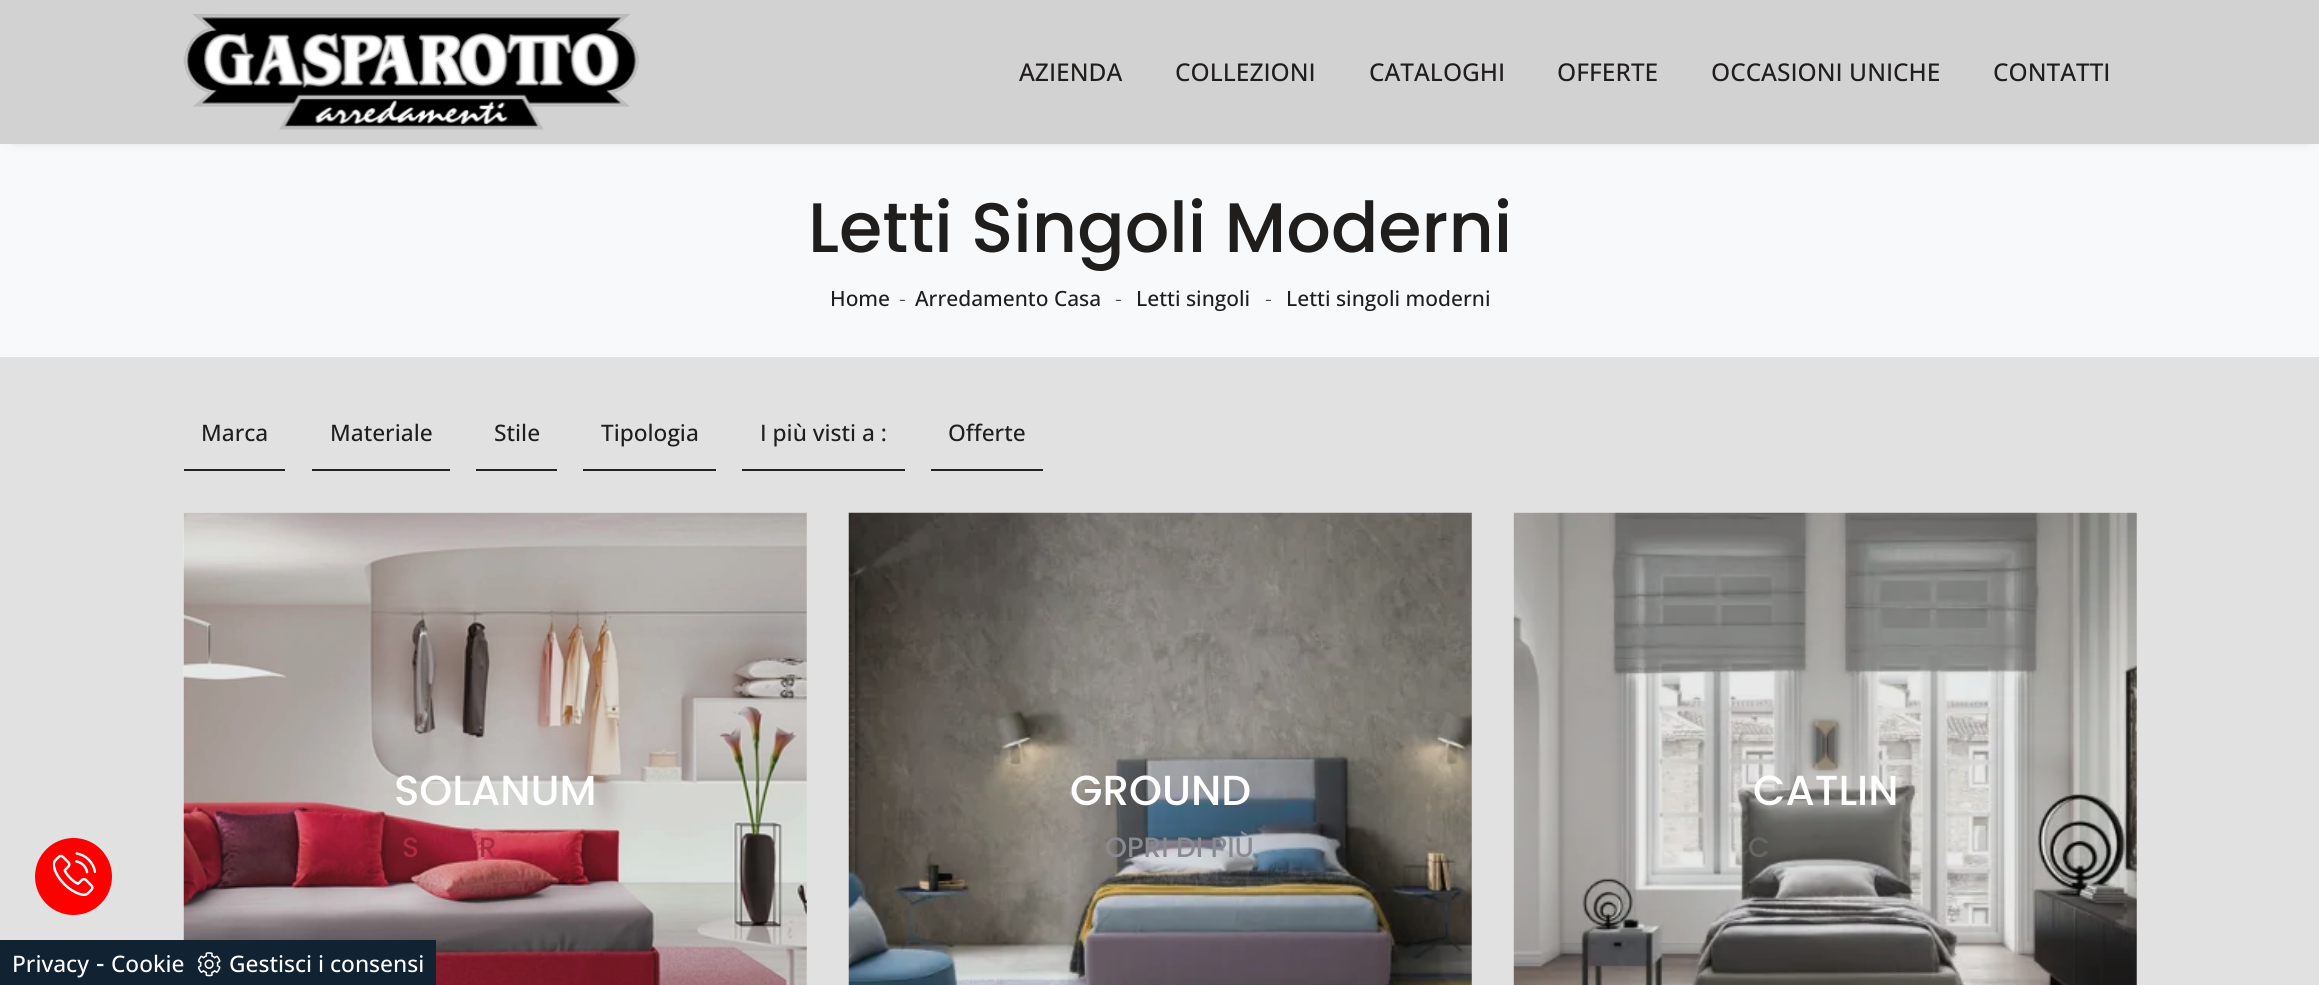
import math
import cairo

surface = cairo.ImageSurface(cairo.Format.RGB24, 2319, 985)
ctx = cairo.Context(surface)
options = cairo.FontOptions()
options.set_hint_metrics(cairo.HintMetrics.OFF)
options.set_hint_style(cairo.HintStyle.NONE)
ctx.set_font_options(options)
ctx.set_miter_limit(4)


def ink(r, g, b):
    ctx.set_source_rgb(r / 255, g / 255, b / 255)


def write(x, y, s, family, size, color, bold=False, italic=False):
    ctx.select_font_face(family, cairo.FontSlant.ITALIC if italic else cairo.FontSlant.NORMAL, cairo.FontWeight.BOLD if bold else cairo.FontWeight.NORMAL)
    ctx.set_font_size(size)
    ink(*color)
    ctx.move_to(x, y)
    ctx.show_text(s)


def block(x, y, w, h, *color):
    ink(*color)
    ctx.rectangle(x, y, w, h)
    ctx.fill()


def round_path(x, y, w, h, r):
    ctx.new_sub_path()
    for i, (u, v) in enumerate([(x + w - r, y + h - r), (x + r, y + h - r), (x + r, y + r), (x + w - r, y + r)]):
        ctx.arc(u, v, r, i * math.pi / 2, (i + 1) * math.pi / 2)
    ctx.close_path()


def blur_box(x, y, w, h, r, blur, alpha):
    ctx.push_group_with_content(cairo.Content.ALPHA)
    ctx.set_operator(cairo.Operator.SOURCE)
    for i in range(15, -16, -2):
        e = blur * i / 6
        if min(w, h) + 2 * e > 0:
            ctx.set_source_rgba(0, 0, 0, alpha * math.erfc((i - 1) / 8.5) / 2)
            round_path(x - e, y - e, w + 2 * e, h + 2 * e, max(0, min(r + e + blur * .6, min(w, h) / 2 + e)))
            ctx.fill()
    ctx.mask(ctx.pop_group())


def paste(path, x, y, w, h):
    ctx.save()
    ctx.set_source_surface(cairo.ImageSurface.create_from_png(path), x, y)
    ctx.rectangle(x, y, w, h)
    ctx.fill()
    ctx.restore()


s1 = dict(family="Open Sans Medium", size=24.5, color=(32, 29, 29))
s2 = dict(family="Poppins Medium", size=70, color=(32, 29, 29))
s3 = dict(family="Open Sans Medium", size=21, color=(32, 29, 29))
s4 = dict(family="Open Sans Light", size=21, color=(32, 29, 29))
s5 = dict(family="Open Sans Medium", size=22.75, color=(32, 29, 29))
s6 = dict(family="Poppins Medium", size=42, color=(255, 255, 255))
s7 = dict(family="Poppins Medium", size=28, color=(171, 43, 63))
s8 = dict(family="Poppins Medium", size=28, color=(136, 138, 143))
s9 = dict(family="Poppins Medium", size=28, color=(103, 102, 99))
s10 = dict(family="Open Sans Medium", size=22.75, color=(255, 255, 255))
s11 = dict(family="Open Sans Medium", size=26, color=(255, 255, 255))

ink(225, 225, 225)
ctx.paint()
block(0, 144, 2319, 213, 248, 249, 250)
ink(51, 51, 51)
blur_box(14, 14, 2293, 116, 0, 9, 1)
block(0, 0, 2319, 144, 210, 210, 210)
paste("pic1.png", 183, 14, 456, 116)
write(1019, 81, "AZIENDA", **s1)
write(1175, 81, "COLLEZIONI", **s1)
write(1369, 81, "CATALOGHI", **s1)
write(1557, 81, "OFFERTE", **s1)
write(1711, 81, "OCCASIONI UNICHE", **s1)
write(1993, 81, "CONTATTI", **s1)
write(808, 252, "Letti Singoli Moderni", **s2)
write(830, 306, "Home", **s3)
write(899, 306, "-", **s4)
write(915, 306, "Arredamento Casa", **s3)
write(1115, 306, "-", **s4)
write(1136, 306, "Letti singoli", **s3)
write(1265, 306, "-", **s4)
write(1286, 306, "Letti singoli moderni", **s3)
block(184, 469, 101, 2, 34, 34, 34)
write(201, 441, "Marca", **s5)
block(312, 469, 138, 2, 34, 34, 34)
write(330, 441, "Materiale", **s5)
block(476, 469, 81, 2, 34, 34, 34)
write(494, 441, "Stile", **s5)
block(583, 469, 133, 2, 34, 34, 34)
write(601, 441, "Tipologia", **s5)
block(742, 469, 163, 2, 34, 34, 34)
write(760, 441, "I più visti a :", **s5)
block(931, 469, 112, 2, 34, 34, 34)
write(948, 441, "Offerte", **s5)
paste("pic2.png", 183, 512, 624, 473)
write(394, 805, "SOLANUM", **s6)
write(402, 857, "S", **s7)
write(479, 857, "R", **s7)
paste("pic3.png", 848, 512, 624, 473)
write(1070, 805, "GROUND", **s6)
write(1105, 857, "OPRI DI PIÙ", **s8)
paste("pic4.png", 1513, 512, 624, 473)
write(1753, 805, "CATLIN", **s6)
write(1748, 857, "C", **s9)
ink(255, 0, 0)
ctx.new_path()
ctx.arc(73.5, 876.5, 38.5, 0, 2 * math.pi)
ctx.fill()
paste("pic5.png", 53, 852, 43, 44)
block(0, 940, 436, 45, 17, 34, 51)
write(12, 972, "Privacy", **s10)
write(96, 972, "-", **s11)
write(111, 972, "Cookie", **s10)
paste("pic6.png", 198, 952, 23, 25)
write(229, 972, "Gestisci i consensi", **s10)
surface.write_to_png("screenshot.png")
